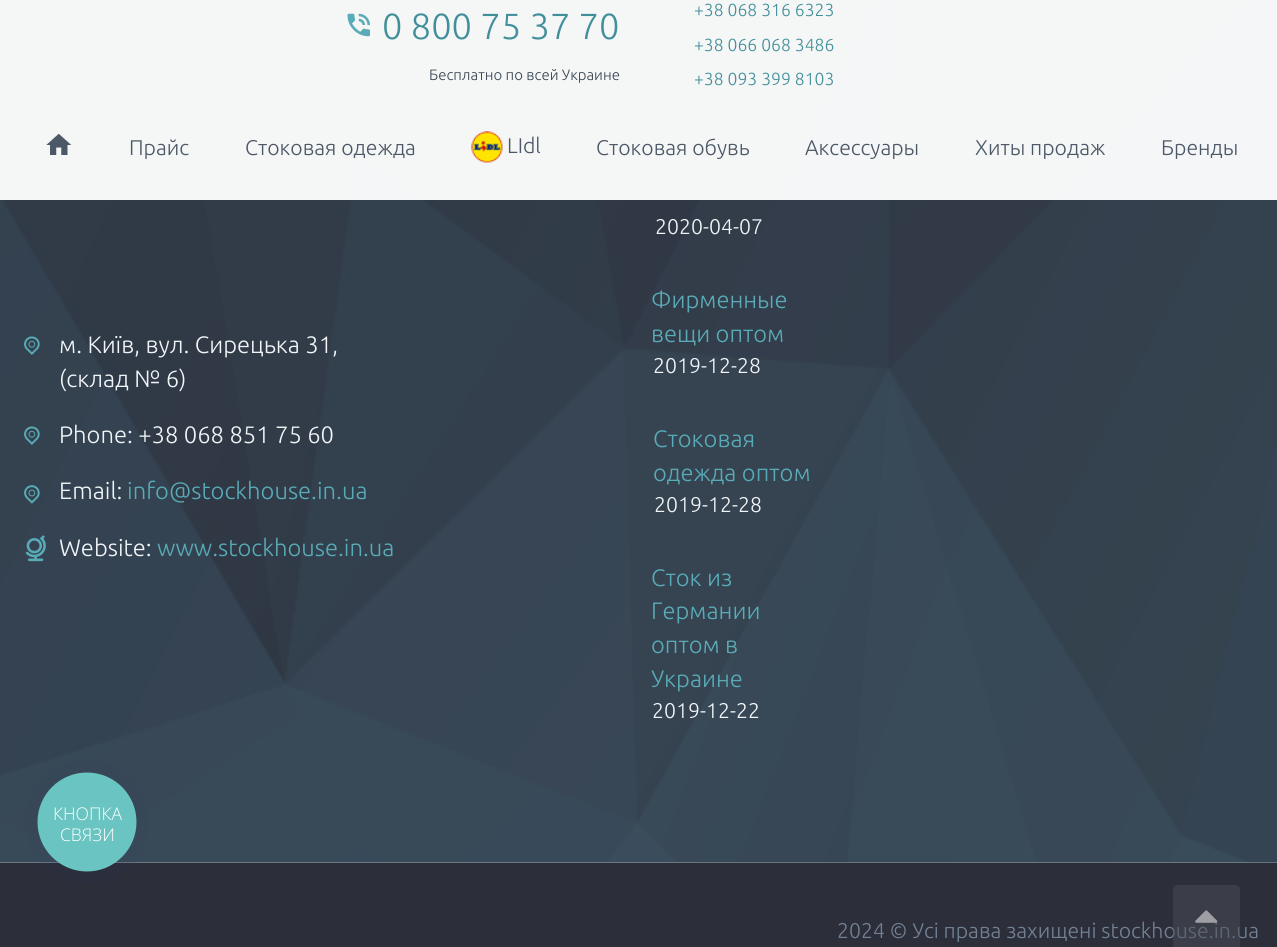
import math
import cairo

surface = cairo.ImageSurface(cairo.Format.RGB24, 1277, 947)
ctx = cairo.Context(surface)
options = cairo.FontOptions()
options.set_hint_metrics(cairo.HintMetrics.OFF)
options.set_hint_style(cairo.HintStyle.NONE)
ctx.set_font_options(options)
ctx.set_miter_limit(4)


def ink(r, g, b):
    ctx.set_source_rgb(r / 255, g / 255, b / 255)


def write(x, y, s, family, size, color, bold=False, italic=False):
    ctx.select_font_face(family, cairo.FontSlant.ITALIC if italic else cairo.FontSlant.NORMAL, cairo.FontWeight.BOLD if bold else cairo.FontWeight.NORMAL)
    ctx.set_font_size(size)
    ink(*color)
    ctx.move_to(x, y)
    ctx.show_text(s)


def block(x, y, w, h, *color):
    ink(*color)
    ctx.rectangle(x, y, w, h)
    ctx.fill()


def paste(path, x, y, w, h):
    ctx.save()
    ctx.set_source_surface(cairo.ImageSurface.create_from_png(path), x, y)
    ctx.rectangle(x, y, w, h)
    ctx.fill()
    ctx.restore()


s1 = dict(family="Ubuntu Light", size=36.25, color=(65, 143, 154))
s2 = dict(family="Ubuntu Light", size=15, color=(56, 69, 84))
s3 = dict(family="Ubuntu Light", size=17.5, color=(65, 143, 154))
s4 = dict(family="Ubuntu Light", size=21.25, color=(76, 88, 103))
s5 = dict(family="Ubuntu Light", size=23.75, color=(241, 245, 248))
s6 = dict(family="Ubuntu Light", size=23.75, color=(88, 171, 183))
s7 = dict(family="Ubuntu Light", size=21.25, color=(241, 245, 248))
s8 = dict(family="Ubuntu Light", size=21.25, color=(114, 129, 148))
s9 = dict(family="Open Sans Light", size=17.5, color=(255, 255, 255))

ink(255, 255, 255)
ctx.paint()
paste("pic4.png", 0, 0, 1277, 863)
ctx.set_source_rgba(1, 1, 1, 0.95)
ctx.rectangle(0, 0, 1277, 200)
ctx.fill()
paste("pic1.png", 347, 13, 23, 24)
write(382, 39, "0 800 75 37 70", **s1)
write(429, 80, "Бесплатно по всей Украине", **s2)
write(694, 16, "+38 068 316 6323", **s3)
write(694, 51, "+38 066 068 3486", **s3)
write(694, 85, "+38 093 399 8103", **s3)
paste("pic2.png", 46, 133, 26, 22)
write(129, 155, "Прайс", **s4)
write(245, 155, "Стоковая одежда", **s4)
paste("pic3.png", 471, 131, 32, 32)
write(507, 153, "LIdl", **s4)
write(596, 155, "Стоковая обувь", **s4)
write(805, 155, "Аксессуары", **s4)
write(975, 155, "Хиты продаж", **s4)
write(1161, 155, "Бренды", **s4)
paste("pic5.png", 24, 336, 16, 19)
write(59, 353, "м. Київ, вул. Сирецька 31,", **s5)
write(59, 387, "(склад № 6)", **s5)
paste("pic6.png", 24, 426, 16, 19)
write(59, 443, "Phone: +38 068 851 75 60", **s5)
paste("pic7.png", 24, 485, 16, 19)
write(59, 499, "Email:", **s5)
write(127, 499, "info@stockhouse.in.ua", **s6)
paste("pic8.png", 25, 535, 21, 27)
write(59, 556, "Website:", **s5)
write(157, 556, "www.stockhouse.in.ua", **s6)
write(655, 234, "2020-04-07", **s7)
write(651, 308, "Фирменные", **s6)
write(651, 342, "вещи оптом", **s6)
write(653, 373, "2019-12-28", **s7)
write(653, 447, "Стоковая", **s6)
write(653, 481, "одежда оптом", **s6)
write(654, 512, "2019-12-28", **s7)
write(651, 586, "Сток из", **s6)
write(651, 619, "Германии", **s6)
write(651, 653, "оптом в", **s6)
write(651, 687, "Украине", **s6)
write(652, 718, "2019-12-22", **s7)
block(0, 863, 1277, 84, 44, 46, 58)
write(837, 938, "2024 © Усі права захищені stockhouse.in.ua", **s8)
ctx.set_source_rgba(0.29, 0.31, 0.337, 0.5)
ctx.new_path()
ctx.move_to(1178, 885)
ctx.line_to(1235, 885)
ctx.curve_to(1238, 885, 1240, 887, 1240, 890)
ctx.line_to(1240, 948)
ctx.line_to(1173, 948)
ctx.line_to(1173, 890)
ctx.curve_to(1173, 887, 1175, 885, 1178, 885)
ctx.close_path()
ctx.fill()
paste("pic9.png", 1195, 910, 23, 13)
ctx.set_source_rgba(0.165, 0.251, 0.365, 0.06)
ctx.arc(87, 822, 62, 0, 2 * math.pi)
ctx.fill()
ink(106, 196, 193)
ctx.arc(87, 822, 49.5, 0, 2 * math.pi)
ctx.fill()
write(53, 820, "КНОПКА", **s9)
write(60, 841, "СВЯЗИ", **s9)
surface.write_to_png("screenshot.png")
